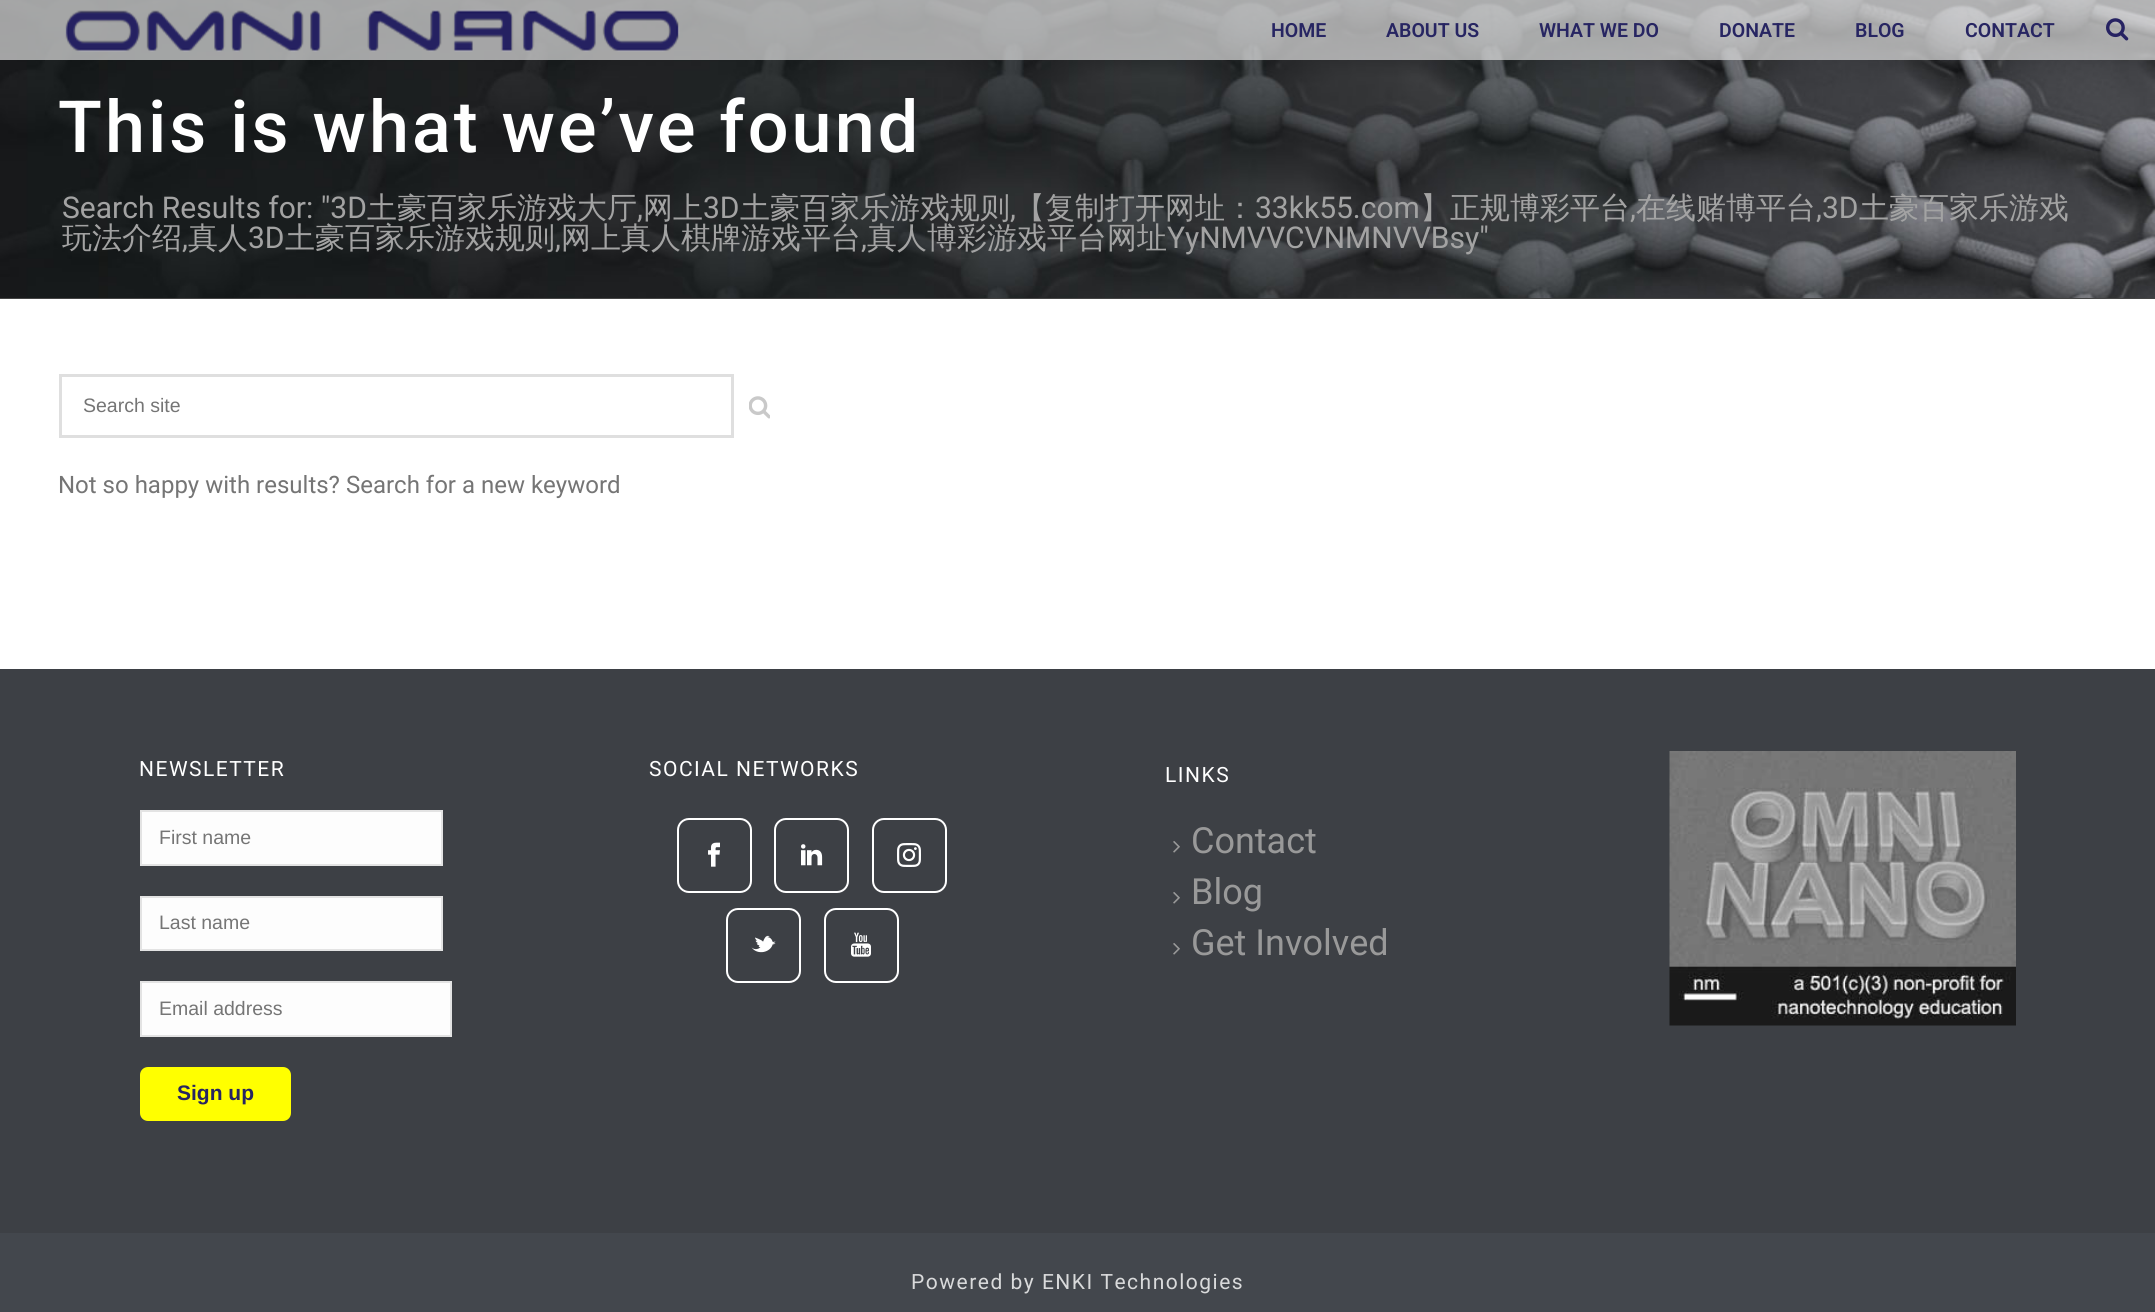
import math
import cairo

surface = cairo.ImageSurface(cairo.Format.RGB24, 2155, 1312)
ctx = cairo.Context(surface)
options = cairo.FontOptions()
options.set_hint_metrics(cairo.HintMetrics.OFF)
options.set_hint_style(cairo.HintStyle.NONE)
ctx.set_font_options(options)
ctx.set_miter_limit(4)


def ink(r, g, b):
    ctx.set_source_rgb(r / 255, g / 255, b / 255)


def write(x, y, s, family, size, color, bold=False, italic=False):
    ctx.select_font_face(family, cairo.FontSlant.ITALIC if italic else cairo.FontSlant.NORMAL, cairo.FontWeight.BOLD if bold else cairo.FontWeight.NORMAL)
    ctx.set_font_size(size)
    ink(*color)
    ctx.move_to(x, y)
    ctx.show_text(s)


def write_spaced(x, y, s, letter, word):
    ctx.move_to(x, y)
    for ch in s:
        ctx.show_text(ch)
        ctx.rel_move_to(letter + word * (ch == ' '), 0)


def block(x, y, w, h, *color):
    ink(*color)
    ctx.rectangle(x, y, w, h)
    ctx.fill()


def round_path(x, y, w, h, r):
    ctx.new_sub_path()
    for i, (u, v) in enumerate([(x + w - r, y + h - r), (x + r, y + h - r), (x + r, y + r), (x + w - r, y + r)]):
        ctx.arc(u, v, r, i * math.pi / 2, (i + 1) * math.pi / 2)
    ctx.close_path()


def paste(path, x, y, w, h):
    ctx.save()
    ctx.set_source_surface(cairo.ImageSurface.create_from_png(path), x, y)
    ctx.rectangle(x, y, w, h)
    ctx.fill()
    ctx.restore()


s1 = dict(family="Roboto SemiBold", size=19.5, color=(39, 37, 98))
s2 = dict(family="Roboto", size=30, color=(163, 163, 163))
s3 = dict(family="WenQuanYi Zen Hei Medium", size=30, color=(163, 163, 163))
s4 = dict(family="Liberation Sans", size=19.5, color=(117, 117, 117))
s5 = dict(family="Roboto", size=24, color=(117, 117, 117))
s6 = dict(family="Liberation Sans", size=21, color=(39, 37, 98), bold=True)
s7 = dict(family="Roboto", size=36, color=(153, 153, 153))

ink(255, 255, 255)
ctx.paint()
block(0, 298, 2155, 1, 68, 68, 68)
paste("pic1.png", 0, 0, 2155, 298)
ctx.set_source_rgba(0.898, 0.898, 0.898, 0.68)
ctx.rectangle(0, 0, 2155, 60)
ctx.fill()
paste("pic2.png", 65, 9, 615, 43)
write(1271, 37, "HOME", **s1)
write(1386, 37, "ABOUT US", **s1)
write(1539, 37, "WHAT WE DO", **s1)
write(1719, 37, "DONATE", **s1)
write(1855, 37, "BLOG", **s1)
write(1965, 37, "CONTACT", **s1)
paste("pic3.png", 2106, 18, 23, 23)
ctx.select_font_face("Roboto Medium")
ctx.set_font_size(72)
ink(255, 255, 255)
write_spaced(58, 152, "This is what we’ve found", 3, 0)
write(62, 218, "Search Results for: \"3D", **s2)
write(367, 218, "土豪百家乐游戏大厅", **s3)
write(637, 218, ",", **s2)
write(643, 218, "网上", **s3)
write(703, 218, "3D", **s2)
write(740, 218, "土豪百家乐游戏规则", **s3)
write(1010, 218, ",", **s2)
write(1015, 218, "【复制打开网址：", **s3)
write(1255, 218, "33kk55.com", **s2)
write(1420, 218, "】正规博彩平台", **s3)
write(1630, 218, ",", **s2)
write(1636, 218, "在线赌博平台", **s3)
write(1816, 218, ",3D", **s2)
write(1859, 218, "土豪百家乐游戏", **s3)
write(62, 248, "玩法介绍", **s3)
write(182, 248, ",", **s2)
write(188, 248, "真人", **s3)
write(248, 248, "3D", **s2)
write(285, 248, "土豪百家乐游戏规则", **s3)
write(555, 248, ",", **s2)
write(561, 248, "网上真人棋牌游戏平台", **s3)
write(861, 248, ",", **s2)
write(867, 248, "真人博彩游戏平台网址", **s3)
write(1167, 248, "YyNMVVCVNMNVVBsy\"", **s2)
ctx.rectangle(60.5, 375.5, 672, 61)
ink(223, 223, 223)
ctx.set_line_width(3)
ctx.stroke()
write(83, 412, "Search site", **s4)
paste("pic4.png", 749, 396, 21, 23)
write(58, 493, "Not so happy with results? Search for a new keyword", **s5)
block(0, 669, 2155, 564, 61, 64, 69)
ctx.set_font_size(21)
ink(255, 255, 255)
write_spaced(139, 776, "NEWSLETTER", 1.5, 0)
ink(253, 253, 253)
ctx.rectangle(141, 811, 301, 54)
ctx.fill_preserve()
ink(227, 227, 227)
ctx.set_line_width(2)
ctx.stroke()
write(159, 844, "First name", **s4)
ink(253, 253, 253)
ctx.rectangle(141, 897, 301, 53)
ctx.fill_preserve()
ink(227, 227, 227)
ctx.stroke()
write(159, 929, "Last name", **s4)
ink(253, 253, 253)
ctx.rectangle(141, 982, 310, 54)
ctx.fill_preserve()
ink(227, 227, 227)
ctx.stroke()
write(159, 1015, "Email address", **s4)
ink(255, 255, 0)
round_path(140, 1067, 151, 54, 8)
ctx.fill()
write(177, 1100, "Sign up", **s6)
ctx.select_font_face("Roboto")
ink(255, 255, 255)
write_spaced(649, 776, "SOCIAL NETWORKS", 1.5, 0)
round_path(678, 819, 73, 73, 11)
ctx.stroke()
paste("pic5.png", 708, 842, 12, 25)
round_path(775, 819, 73, 73, 11)
ctx.stroke()
paste("pic6.png", 801, 844, 22, 22)
round_path(873, 819, 73, 73, 11)
ctx.stroke()
paste("pic7.png", 897, 843, 24, 24)
round_path(727, 909, 73, 73, 11)
ctx.stroke()
paste("pic8.png", 751, 935, 25, 18)
round_path(825, 909, 73, 73, 11)
ctx.stroke()
paste("pic9.png", 851, 932, 20, 25)
write_spaced(1165, 782, "LINKS", 1.5, 0)
paste("pic10.png", 1173, 841, 7, 12)
write(1191, 853, "Contact", **s7)
paste("pic10.png", 1173, 892, 7, 12)
write(1191, 904, "Blog", **s7)
paste("pic10.png", 1173, 943, 7, 12)
write(1191, 955, "Get Involved", **s7)
paste("pic11.png", 1669, 751, 347, 275)
block(0, 1233, 2155, 79, 67, 71, 77)
ctx.set_font_size(21)
ink(217, 218, 219)
write_spaced(911, 1289, "Powered by ENKI Technologies", 1.5, 0)
surface.write_to_png("screenshot.png")
